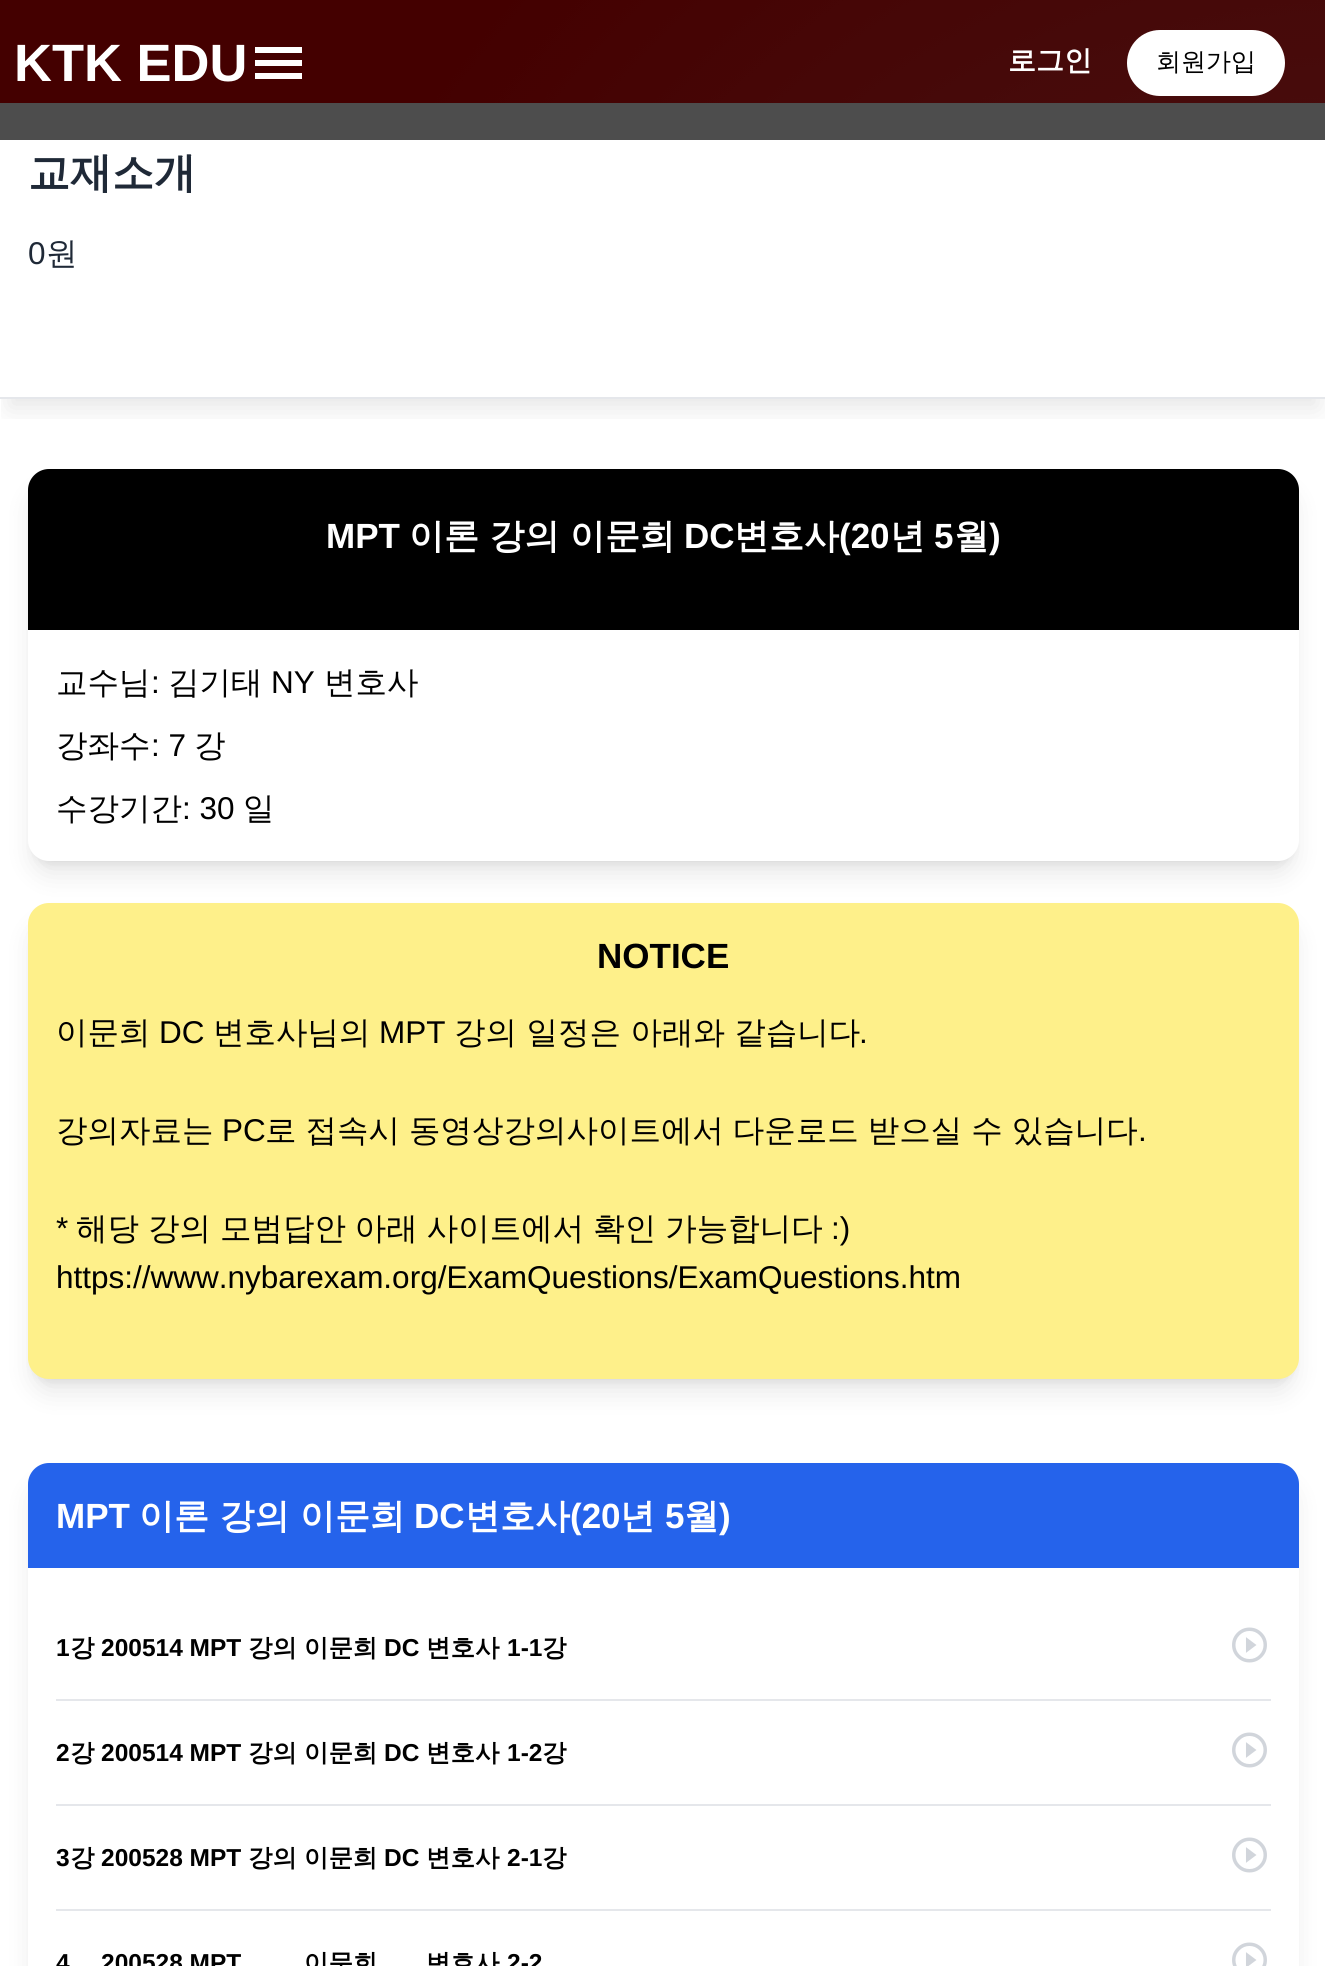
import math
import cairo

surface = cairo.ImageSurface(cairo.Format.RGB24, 1325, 1966)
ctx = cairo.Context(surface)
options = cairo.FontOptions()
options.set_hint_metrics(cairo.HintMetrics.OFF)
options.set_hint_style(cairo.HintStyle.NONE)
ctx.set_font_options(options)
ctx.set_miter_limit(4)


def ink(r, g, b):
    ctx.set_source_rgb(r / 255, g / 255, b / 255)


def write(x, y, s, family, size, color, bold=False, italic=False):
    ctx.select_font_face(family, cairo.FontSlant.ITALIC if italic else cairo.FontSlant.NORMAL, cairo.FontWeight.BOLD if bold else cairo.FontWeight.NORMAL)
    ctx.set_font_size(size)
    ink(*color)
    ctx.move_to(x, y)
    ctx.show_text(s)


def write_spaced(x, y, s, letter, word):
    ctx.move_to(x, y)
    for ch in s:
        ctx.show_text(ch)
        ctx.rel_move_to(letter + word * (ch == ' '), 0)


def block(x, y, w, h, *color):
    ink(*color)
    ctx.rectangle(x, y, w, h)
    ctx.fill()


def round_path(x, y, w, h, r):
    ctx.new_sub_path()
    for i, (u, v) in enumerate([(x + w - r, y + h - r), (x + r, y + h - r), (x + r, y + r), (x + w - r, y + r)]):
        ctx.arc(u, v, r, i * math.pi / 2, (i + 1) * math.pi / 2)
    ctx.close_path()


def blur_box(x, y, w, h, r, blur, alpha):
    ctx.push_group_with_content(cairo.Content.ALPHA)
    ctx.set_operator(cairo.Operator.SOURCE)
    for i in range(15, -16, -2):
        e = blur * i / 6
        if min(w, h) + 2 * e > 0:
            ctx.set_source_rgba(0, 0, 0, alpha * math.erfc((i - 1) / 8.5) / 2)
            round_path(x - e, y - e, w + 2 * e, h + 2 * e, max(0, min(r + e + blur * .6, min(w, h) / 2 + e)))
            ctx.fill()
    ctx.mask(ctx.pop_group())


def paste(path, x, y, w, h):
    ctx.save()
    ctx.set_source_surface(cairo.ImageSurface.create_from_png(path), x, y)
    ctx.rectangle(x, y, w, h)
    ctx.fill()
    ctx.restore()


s1 = dict(family="Liberation Sans", size=52.5, color=(255, 255, 255), bold=True)
s2 = dict(family="WenQuanYi Zen Hei", size=28, color=(255, 255, 255), bold=True)
s3 = dict(family="WenQuanYi Zen Hei Medium", size=25, color=(0, 0, 0))
s4 = dict(family="WenQuanYi Zen Hei", size=42, color=(31, 41, 55), bold=True)
s5 = dict(family="Liberation Sans", size=31.5, color=(31, 41, 55))
s6 = dict(family="WenQuanYi Zen Hei Medium", size=31.5, color=(31, 41, 55))
s7 = dict(family="Liberation Sans", size=35, color=(255, 255, 255), bold=True)
s8 = dict(family="WenQuanYi Zen Hei", size=35, color=(255, 255, 255), bold=True)
s9 = dict(family="WenQuanYi Zen Hei Medium", size=31.5, color=(0, 0, 0))
s10 = dict(family="Liberation Sans", size=31.5, color=(0, 0, 0))
s11 = dict(family="Liberation Sans", size=35, color=(0, 0, 0), bold=True)
s12 = dict(family="Liberation Sans", size=24.5, color=(0, 0, 0), bold=True)
s13 = dict(family="WenQuanYi Zen Hei", size=24.5, color=(0, 0, 0), bold=True)

ink(255, 255, 255)
ctx.paint()
block(0, 103, 1325, 37, 77, 77, 77)
paste("pic1.png", 0, 0, 1325, 103)
write(14, 81, "KTK EDU", **s1)
ctx.new_path()
ctx.move_to(255, 47)
ctx.line_to(302, 47)
ctx.line_to(302, 53)
ctx.line_to(255, 53)
ctx.close_path()
ctx.move_to(255, 66)
ctx.line_to(255, 60)
ctx.line_to(302, 60)
ctx.line_to(302, 66)
ctx.close_path()
ctx.move_to(255, 79)
ctx.line_to(255, 73)
ctx.line_to(302, 73)
ctx.line_to(302, 79)
ctx.close_path()
ctx.fill()
write(1008, 70, "로그인", **s2)
ctx.save()
ctx.rectangle(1, 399, 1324, 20)
ctx.clip()
ink(0, 0, 0)
blur_box(9, 130, 1309, 278, 0, 13, 0.1)
ctx.restore()
round_path(1127, 30, 158, 66, 33)
ctx.fill()
write(1156, 70, "회원가입", **s3)
block(0, 397, 1325, 2, 229, 231, 235)
write(28, 187, "교재소개", **s4)
write(28, 264, "0", **s5)
write(46, 264, "원", **s6)
ink(0, 0, 0)
blur_box(35, 483, 1257, 378, 14, 5, 0.1)
blur_box(33, 492, 1260, 381, 16, 13, 0.1)
ink(0, 0, 0)
ctx.new_path()
ctx.move_to(49, 469)
ctx.line_to(1278, 469)
ctx.curve_to(1289.5, 469, 1299, 478.5, 1299, 490)
ctx.line_to(1299, 630)
ctx.line_to(28, 630)
ctx.line_to(28, 490)
ctx.curve_to(28, 478.5, 37.5, 469, 49, 469)
ctx.close_path()
ctx.fill()
write(326, 548, "MPT", **s7)
write(409, 548, "이론 강의 이문희", **s8)
write(684, 548, "DC", **s7)
write(734, 548, "변호사", **s8)
write(839, 548, "(20", **s7)
write(890, 548, "년", **s8)
write(934, 548, "5", **s7)
write(954, 548, "월", **s8)
write(989, 548, ")", **s7)
ctx.new_path()
ctx.move_to(28, 630)
ctx.line_to(1299, 630)
ctx.line_to(1299, 840)
ctx.curve_to(1299, 851.5, 1289.5, 861, 1278, 861)
ctx.line_to(49, 861)
ctx.curve_to(37.5, 861, 28, 851.5, 28, 840)
ctx.close_path()
ctx.fill()
write(56, 693, "교수님", **s9)
write(151, 693, ":", **s10)
write(168, 693, "김기태", **s9)
write(271, 693, "NY", **s10)
write(324, 693, "변호사", **s9)
write(56, 756, "강좌수", **s9)
write(151, 756, ": 7", **s10)
write(194, 756, "강", **s9)
write(56, 819, "수강기간", **s9)
write(182, 819, ": 30", **s10)
write(243, 819, "일", **s9)
ink(0, 0, 0)
blur_box(35, 917, 1257, 462, 14, 5, 0.1)
blur_box(33, 926, 1260, 465, 16, 13, 0.1)
ink(254, 240, 138)
round_path(28, 903, 1271, 476, 21)
ctx.fill()
write(597, 968, "NOTICE", **s11)
write(56, 1043, "이문희", **s9)
write(159, 1043, "DC", **s10)
write(213, 1043, "변호사님의", **s9)
write(379, 1043, "MPT", **s10)
write(454, 1043, "강의 일정은 아래와 같습니다", **s9)
write(859, 1043, ".", **s10)
write(56, 1141, "강의자료는", **s9)
write(222, 1141, "PC", **s10)
ctx.select_font_face("WenQuanYi Zen Hei Medium")
write_spaced(265, 1141, "로 접속시 동영상강의사이트에서 다운로드 받으실 수 있습니다", 0, -0.5)
write(1138, 1141, ".", **s10)
write(56, 1239, "*", **s10)
ctx.select_font_face("WenQuanYi Zen Hei Medium")
write_spaced(76, 1239, "해당 강의 모범답안 아래 사이트에서 확인 가능합니다", 0, -0.5)
write(831, 1239, ":)", **s10)
write(56, 1288, "https://www.nybarexam.org/ExamQuestions/ExamQuestions.htm", **s10)
ink(0, 0, 0)
blur_box(33, 1486, 1260, 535, 16, 13, 0.1)
ink(37, 99, 235)
ctx.new_path()
ctx.move_to(49, 1463)
ctx.line_to(1278, 1463)
ctx.curve_to(1289.5, 1463, 1299, 1472.5, 1299, 1484)
ctx.line_to(1299, 1568)
ctx.line_to(28, 1568)
ctx.line_to(28, 1484)
ctx.curve_to(28, 1472.5, 37.5, 1463, 49, 1463)
ctx.close_path()
ctx.fill()
write(56, 1528, "MPT", **s7)
write(139, 1528, "이론 강의 이문희", **s8)
write(414, 1528, "DC", **s7)
write(465, 1528, "변호사", **s8)
write(570, 1528, "(20", **s7)
write(620, 1528, "년", **s8)
write(665, 1528, "5", **s7)
write(684, 1528, "월", **s8)
write(719, 1528, ")", **s7)
block(28, 1568, 1271, 398, 255, 255, 255)
block(56, 1699, 1215, 2, 229, 231, 235)
write(56, 1656, "1", **s12)
write(70, 1656, "강", **s13)
write(101, 1656, "200514 MPT", **s12)
write(248, 1656, "강의", **s13)
write(304, 1656, "이문희", **s13)
write(384, 1656, "DC", **s12)
write(426, 1656, "변호사", **s13)
write(507, 1656, "1-1", **s12)
write(542, 1656, "강", **s13)
paste("pic2.png", 1232, 1627, 35, 36)
block(56, 1804, 1215, 2, 229, 231, 235)
write(56, 1761, "2", **s12)
write(70, 1761, "강", **s13)
write(101, 1761, "200514 MPT", **s12)
write(248, 1761, "강의", **s13)
write(304, 1761, "이문희", **s13)
write(384, 1761, "DC", **s12)
write(426, 1761, "변호사", **s13)
write(507, 1761, "1-2", **s12)
write(542, 1761, "강", **s13)
paste("pic2.png", 1232, 1732, 35, 36)
block(56, 1909, 1215, 2, 229, 231, 235)
write(56, 1866, "3", **s12)
write(70, 1866, "강", **s13)
write(101, 1866, "200528 MPT", **s12)
write(248, 1866, "강의", **s13)
write(304, 1866, "이문희", **s13)
write(384, 1866, "DC", **s12)
write(426, 1866, "변호사", **s13)
write(507, 1866, "2-1", **s12)
write(542, 1866, "강", **s13)
paste("pic2.png", 1232, 1837, 35, 36)
write(56, 1971, "4", **s12)
write(101, 1971, "200528 MPT", **s12)
write(304, 1971, "이문희", **s13)
write(426, 1971, "변호사", **s13)
write(507, 1971, "2-2", **s12)
paste("pic3.png", 1232, 1942, 35, 24)
surface.write_to_png("screenshot.png")
